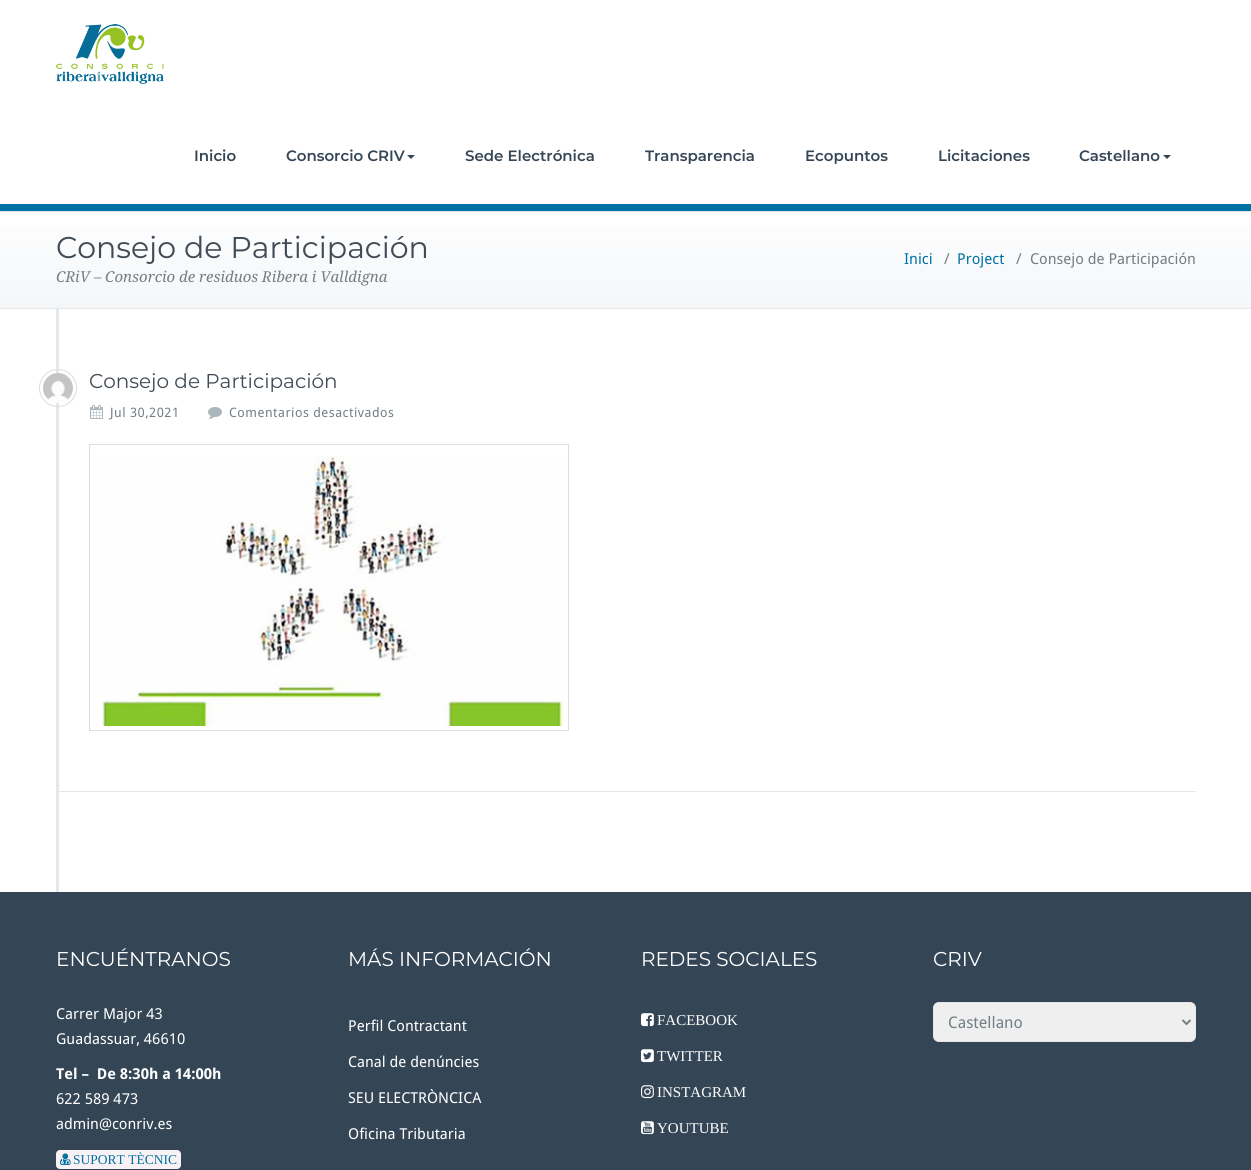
import math
import cairo

surface = cairo.ImageSurface(cairo.Format.RGB24, 1251, 1170)
ctx = cairo.Context(surface)
options = cairo.FontOptions()
options.set_hint_metrics(cairo.HintMetrics.OFF)
options.set_hint_style(cairo.HintStyle.NONE)
ctx.set_font_options(options)
ctx.set_miter_limit(4)


def ink(r, g, b):
    ctx.set_source_rgb(r / 255, g / 255, b / 255)


def write(x, y, s, family, size, color, bold=False, italic=False):
    ctx.select_font_face(family, cairo.FontSlant.ITALIC if italic else cairo.FontSlant.NORMAL, cairo.FontWeight.BOLD if bold else cairo.FontWeight.NORMAL)
    ctx.set_font_size(size)
    ink(*color)
    ctx.move_to(x, y)
    ctx.show_text(s)


def write_spaced(x, y, s, letter, word):
    ctx.move_to(x, y)
    for ch in s:
        ctx.show_text(ch)
        ctx.rel_move_to(letter + word * (ch == ' '), 0)


def block(x, y, w, h, *color):
    ink(*color)
    ctx.rectangle(x, y, w, h)
    ctx.fill()


def round_path(x, y, w, h, r):
    ctx.new_sub_path()
    for i, (u, v) in enumerate([(x + w - r, y + h - r), (x + r, y + h - r), (x + r, y + r), (x + w - r, y + r)]):
        ctx.arc(u, v, r, i * math.pi / 2, (i + 1) * math.pi / 2)
    ctx.close_path()


def paste(path, x, y, w, h):
    ctx.save()
    ctx.set_source_surface(cairo.ImageSurface.create_from_png(path), x, y)
    ctx.rectangle(x, y, w, h)
    ctx.fill()
    ctx.restore()


s1 = dict(family="Montserrat SemiBold", size=15, color=(53, 70, 86))
s2 = dict(family="Montserrat", size=30, color=(64, 75, 86))
s3 = dict(family="Droid Serif", size=15, color=(115, 127, 133), italic=True)
s4 = dict(family="Droid Sans", size=15, color=(1, 114, 163))
s5 = dict(family="Droid Sans", size=15, color=(115, 127, 133))
s6 = dict(family="Montserrat", size=20, color=(64, 75, 86))
s7 = dict(family="Montserrat", size=20, color=(255, 255, 255))
s8 = dict(family="Droid Sans", size=15, color=(255, 255, 255))
s9 = dict(family="Droid Sans", size=15, color=(255, 255, 255), bold=True)
s10 = dict(family="Liberation Serif", size=13.5, color=(1, 114, 163))
s11 = dict(family="Liberation Serif", size=15, color=(255, 255, 255))
s12 = dict(family="Droid Sans", size=16, color=(115, 127, 133))

ink(255, 255, 255)
ctx.paint()
block(0, 204, 1251, 7, 1, 114, 163)
paste("pic1.png", 56, 24, 108, 60)
write(194, 161, "Inicio", **s1)
write(286, 161, "Consorcio CRIV", **s1)
ctx.new_path()
ctx.move_to(407, 155)
ctx.line_to(415, 155)
ctx.line_to(411, 159)
ctx.close_path()
ctx.fill()
write(465, 161, "Sede Electrónica", **s1)
write(645, 161, "Transparencia", **s1)
write(805, 161, "Ecopuntos", **s1)
write(938, 161, "Licitaciones", **s1)
write(1079, 161, "Castellano", **s1)
ctx.new_path()
ctx.move_to(1163, 155)
ctx.line_to(1171, 155)
ctx.line_to(1167, 159)
ctx.close_path()
ctx.fill()
gradient = cairo.LinearGradient(626, 212, 626, 308)
gradient.add_color_stop_rgba(0, 0.996, 0.996, 1, 1)
gradient.add_color_stop_rgba(1, 0.957, 0.965, 0.969, 1)
ctx.set_source(gradient)
ctx.rectangle(0, 226, 1251, 82)
ctx.fill()
block(0, 211, 1251, 1, 228, 232, 234)
block(0, 308, 1251, 1, 228, 232, 234)
write(56, 258, "Consejo de Participación", **s2)
write(56, 282, "CRiV – Consorcio de residuos Ribera i Valldigna", **s3)
write(904, 264, "Inici", **s4)
write(944, 264, "/", **s5)
write(957, 264, "Project", **s4)
write(1016, 264, "/", **s5)
write(1030, 264, "Consejo de Participación", **s5)
block(56, 309, 3, 583, 228, 232, 234)
block(59, 791, 1137, 1, 228, 232, 234)
ctx.new_path()
ctx.arc(58, 388, 18.5, 0, 2 * math.pi)
ink(221, 221, 221)
ctx.set_line_width(1)
ctx.stroke()
paste("pic2.png", 43, 373, 30, 30)
write(89, 388, "Consejo de Participación", **s6)
paste("pic3.png", 90, 405, 13, 14)
ctx.select_font_face("Droid Sans")
ctx.set_font_size(13)
ink(115, 127, 133)
write_spaced(110, 417, "Jul 30,2021", 0.5, 0)
paste("pic4.png", 208, 407, 14, 12)
write_spaced(229, 417, "Comentarios desactivados", 0.5, 0)
ctx.rectangle(89.5, 444.5, 479, 286)
ink(221, 221, 221)
ctx.stroke()
paste("pic5.png", 102, 456, 462, 270)
block(0, 892, 1251, 278, 52, 70, 86)
write(56, 966, "ENCUÉNTRANOS", **s7)
write(56, 1019, "Carrer Major 43", **s8)
write(56, 1044, "Guadassuar, 46610", **s8)
write(56, 1079, "Tel –  De 8:30h a 14:00h", **s9)
write(56, 1104, "622 589 473", **s8)
write(56, 1129, "admin@conriv.es", **s8)
ink(249, 242, 244)
round_path(56, 1150, 125, 19, 4)
ctx.fill()
paste("pic6.png", 60, 1153, 11, 12)
write(73, 1164, "SUPORT TÈCNIC", **s10)
write(348, 966, "MÁS INFORMACIÓN", **s7)
write(348, 1031, "Perfil Contractant", **s8)
write(348, 1067, "Canal de denúncies", **s8)
write(348, 1103, "SEU ELECTRÒNCICA", **s8)
write(348, 1139, "Oficina Tributaria", **s8)
write(641, 966, "REDES SOCIALES", **s7)
paste("pic7.png", 641, 1013, 13, 14)
write(657, 1025, "FACEBOOK", **s11)
paste("pic8.png", 641, 1049, 13, 14)
write(657, 1061, "TWITTER", **s11)
paste("pic9.png", 641, 1085, 13, 14)
write(657, 1097, "INSTAGRAM", **s11)
paste("pic10.png", 641, 1121, 13, 14)
write(657, 1133, "YOUTUBE", **s11)
write(933, 966, "CRIV", **s7)
ink(239, 239, 239)
round_path(933.5, 1002.5, 262, 39, 5.5)
ctx.fill_preserve()
ink(231, 231, 231)
ctx.stroke()
ctx.new_path()
ctx.move_to(1182.5, 1020)
ctx.line_to(1186.5, 1024)
ctx.line_to(1190.5, 1020)
ink(115, 127, 133)
ctx.set_line_width(2)
ctx.stroke()
write(948, 1028, "Castellano", **s12)
surface.write_to_png("screenshot.png")
